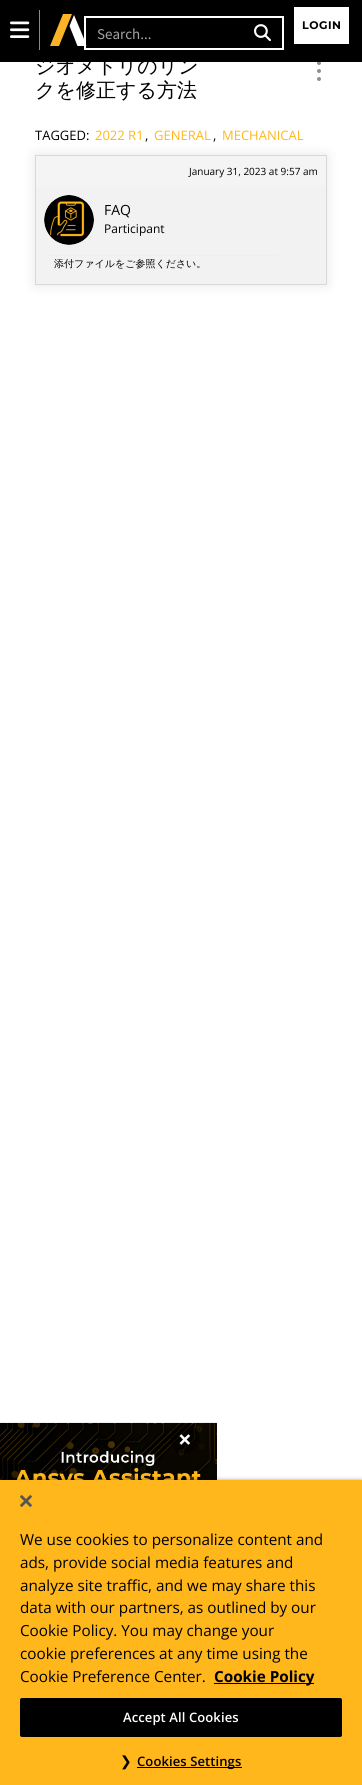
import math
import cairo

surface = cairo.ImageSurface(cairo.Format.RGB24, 362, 1785)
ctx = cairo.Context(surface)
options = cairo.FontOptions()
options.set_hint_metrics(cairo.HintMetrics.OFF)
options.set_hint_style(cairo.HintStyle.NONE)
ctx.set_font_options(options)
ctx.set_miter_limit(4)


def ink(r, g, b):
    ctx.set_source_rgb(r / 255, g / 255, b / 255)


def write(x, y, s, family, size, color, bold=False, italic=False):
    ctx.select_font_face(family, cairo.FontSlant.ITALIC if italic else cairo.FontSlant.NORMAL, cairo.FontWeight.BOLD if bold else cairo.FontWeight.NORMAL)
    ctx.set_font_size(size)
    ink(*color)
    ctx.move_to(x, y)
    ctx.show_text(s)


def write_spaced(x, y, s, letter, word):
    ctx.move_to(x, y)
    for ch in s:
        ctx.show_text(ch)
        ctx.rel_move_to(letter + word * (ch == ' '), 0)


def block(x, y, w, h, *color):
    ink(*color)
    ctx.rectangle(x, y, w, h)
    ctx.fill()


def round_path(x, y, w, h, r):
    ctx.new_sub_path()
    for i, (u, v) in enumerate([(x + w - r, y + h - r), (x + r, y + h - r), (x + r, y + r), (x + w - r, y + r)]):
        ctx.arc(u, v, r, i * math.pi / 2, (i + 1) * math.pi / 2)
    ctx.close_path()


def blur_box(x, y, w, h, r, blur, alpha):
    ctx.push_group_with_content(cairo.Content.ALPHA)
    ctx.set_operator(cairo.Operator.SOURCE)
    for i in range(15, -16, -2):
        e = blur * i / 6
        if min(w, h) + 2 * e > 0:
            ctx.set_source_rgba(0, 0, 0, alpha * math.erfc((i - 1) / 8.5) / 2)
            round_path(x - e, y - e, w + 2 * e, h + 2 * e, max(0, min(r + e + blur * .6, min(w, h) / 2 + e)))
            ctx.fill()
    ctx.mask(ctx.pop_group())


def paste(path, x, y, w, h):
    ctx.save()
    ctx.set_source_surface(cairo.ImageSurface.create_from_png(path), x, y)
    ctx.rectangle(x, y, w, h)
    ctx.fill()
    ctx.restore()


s1 = dict(family="Source Sans Pro", size=15, color=(164, 164, 164))
s2 = dict(family="WenQuanYi Zen Hei Medium", size=20, color=(0, 0, 0))
s3 = dict(family="Open Sans", size=13, color=(0, 0, 0))
s4 = dict(family="Open Sans", size=13, color=(255, 183, 27))
s5 = dict(family="Open Sans", size=10, color=(0, 0, 0))
s6 = dict(family="Open Sans", size=14, color=(0, 0, 0))
s7 = dict(family="Open Sans", size=12, color=(0, 0, 0))
s8 = dict(family="WenQuanYi Zen Hei Medium", size=10, color=(0, 0, 0))
s9 = dict(family="Open Sans", size=24, color=(255, 255, 255), bold=True)
s10 = dict(family="Open Sans", size=15.25, color=(0, 0, 0))
s11 = dict(family="Open Sans", size=15.25, color=(0, 0, 0), bold=True)

ink(255, 255, 255)
ctx.paint()
block(0, 0, 362, 62, 0, 0, 0)
paste("pic1.png", 10, 21, 20, 17)
block(39, 10, 1, 40, 137, 138, 141)
ink(252, 179, 38)
ctx.new_path()
ctx.move_to(50, 46)
ctx.line_to(63, 14)
ctx.line_to(72, 14)
ctx.line_to(59, 46)
ctx.close_path()
ctx.fill()
ink(255, 255, 255)
ctx.new_path()
ctx.move_to(87, 46)
ctx.line_to(77.5, 46)
ctx.line_to(69.5, 26)
ctx.line_to(74, 15)
ctx.close_path()
ctx.fill()
block(294, 7, 55, 37, 255, 255, 255)
ctx.select_font_face("Montserrat", cairo.FontSlant.NORMAL, cairo.FontWeight.BOLD)
ctx.set_font_size(11)
ink(0, 0, 0)
write_spaced(302, 29, "LOGIN", 0.5, 0)
ctx.rectangle(85, 17, 198, 32)
ink(255, 255, 255)
ctx.stroke()
ctx.new_path()
ctx.move_to(90, 18.5)
ctx.line_to(275.5, 18.5)
ctx.line_to(275.5, 47.5)
ctx.line_to(90, 47.5)
ctx.curve_to(88, 47.5, 86.5, 46, 86.5, 44)
ctx.line_to(86.5, 22)
ctx.curve_to(86.5, 20, 88, 18.5, 90, 18.5)
ctx.close_path()
ink(0, 0, 0)
ctx.set_line_width(1)
ctx.stroke()
write(97, 39, "Search...", **s1)
paste("pic2.png", 254, 24, 17, 18)
write(35, 73, "ジオメトリのリン", **s2)
write(35, 97, "クを修正する方法", **s2)
paste("pic3.png", 317, 62, 4, 19)
write(35, 140, "TAGGED:", **s3)
write(95, 140, "2022 R1", **s4)
write(145, 140, ",", **s3)
write(154, 140, "GENERAL", **s4)
write(213, 140, ",", **s3)
write(222, 140, "MECHANICAL", **s4)
ink(0, 0, 0)
blur_box(35, 155, 292, 130, 0, 6, 0.1)
ctx.rectangle(35.5, 155.5, 291, 129)
ink(217, 217, 217)
ctx.stroke()
block(36, 156, 290, 31, 244, 244, 244)
write(189, 175, "January 31, 2023 at 9:57 am", **s5)
block(36, 187, 290, 97, 242, 242, 242)
block(44, 255, 234, 1, 239, 239, 239)
paste("pic4.png", 44, 195, 50, 50)
write(104, 215, "FAQ", **s6)
write(104, 233, "Participant", **s7)
write(54, 267, "添付ファイルをご参照ください。", **s8)
paste("pic5.png", 0, 1422, 217, 58)
ctx.set_source_rgba(0, 0, 0, 0.5)
ctx.arc(185, 1439, 15, 0, 2 * math.pi)
ctx.fill()
write(178, 1448, "×", **s9)
ink(0, 0, 0)
blur_box(0, 1480, 362, 305, 0, 2, 0.35)
block(0, 1480, 362, 305, 255, 183, 27)
paste("pic6.png", 20, 1495, 12, 12)
write(20, 1545, "We use cookies to personalize content and", **s10)
write(20, 1568, "ads, provide social media features and", **s10)
write(20, 1591, "analyze site traffic, and we may share this", **s10)
write(20, 1613, "data with our partners, as outlined by our", **s10)
write(20, 1636, "Cookie Policy. You may change your", **s10)
write(20, 1659, "cookie preferences at any time using the", **s10)
write(20, 1682, "Cookie Preference Center.", **s10)
block(214, 1683, 100, 1, 0, 0, 0)
write(214, 1682, "Cookie Policy", **s11)
round_path(20.5, 1698.5, 321, 38, 1.5)
ctx.fill_preserve()
ctx.stroke()
ctx.select_font_face("Open Sans SemiBold")
ctx.set_font_size(13)
ink(255, 255, 255)
write_spaced(123, 1722, "Accept All Cookies", 0.1, 0)
ctx.select_font_face("DejaVu Sans")
ctx.set_font_size(14)
ink(0, 0, 0)
write_spaced(120, 1766, "❯", 0.1, 0)
block(137, 1767, 105, 1, 0, 0, 0)
ctx.select_font_face("Open Sans SemiBold")
ctx.set_font_size(13)
write_spaced(137, 1766, "Cookies Settings", 0.1, 0)
surface.write_to_png("screenshot.png")
